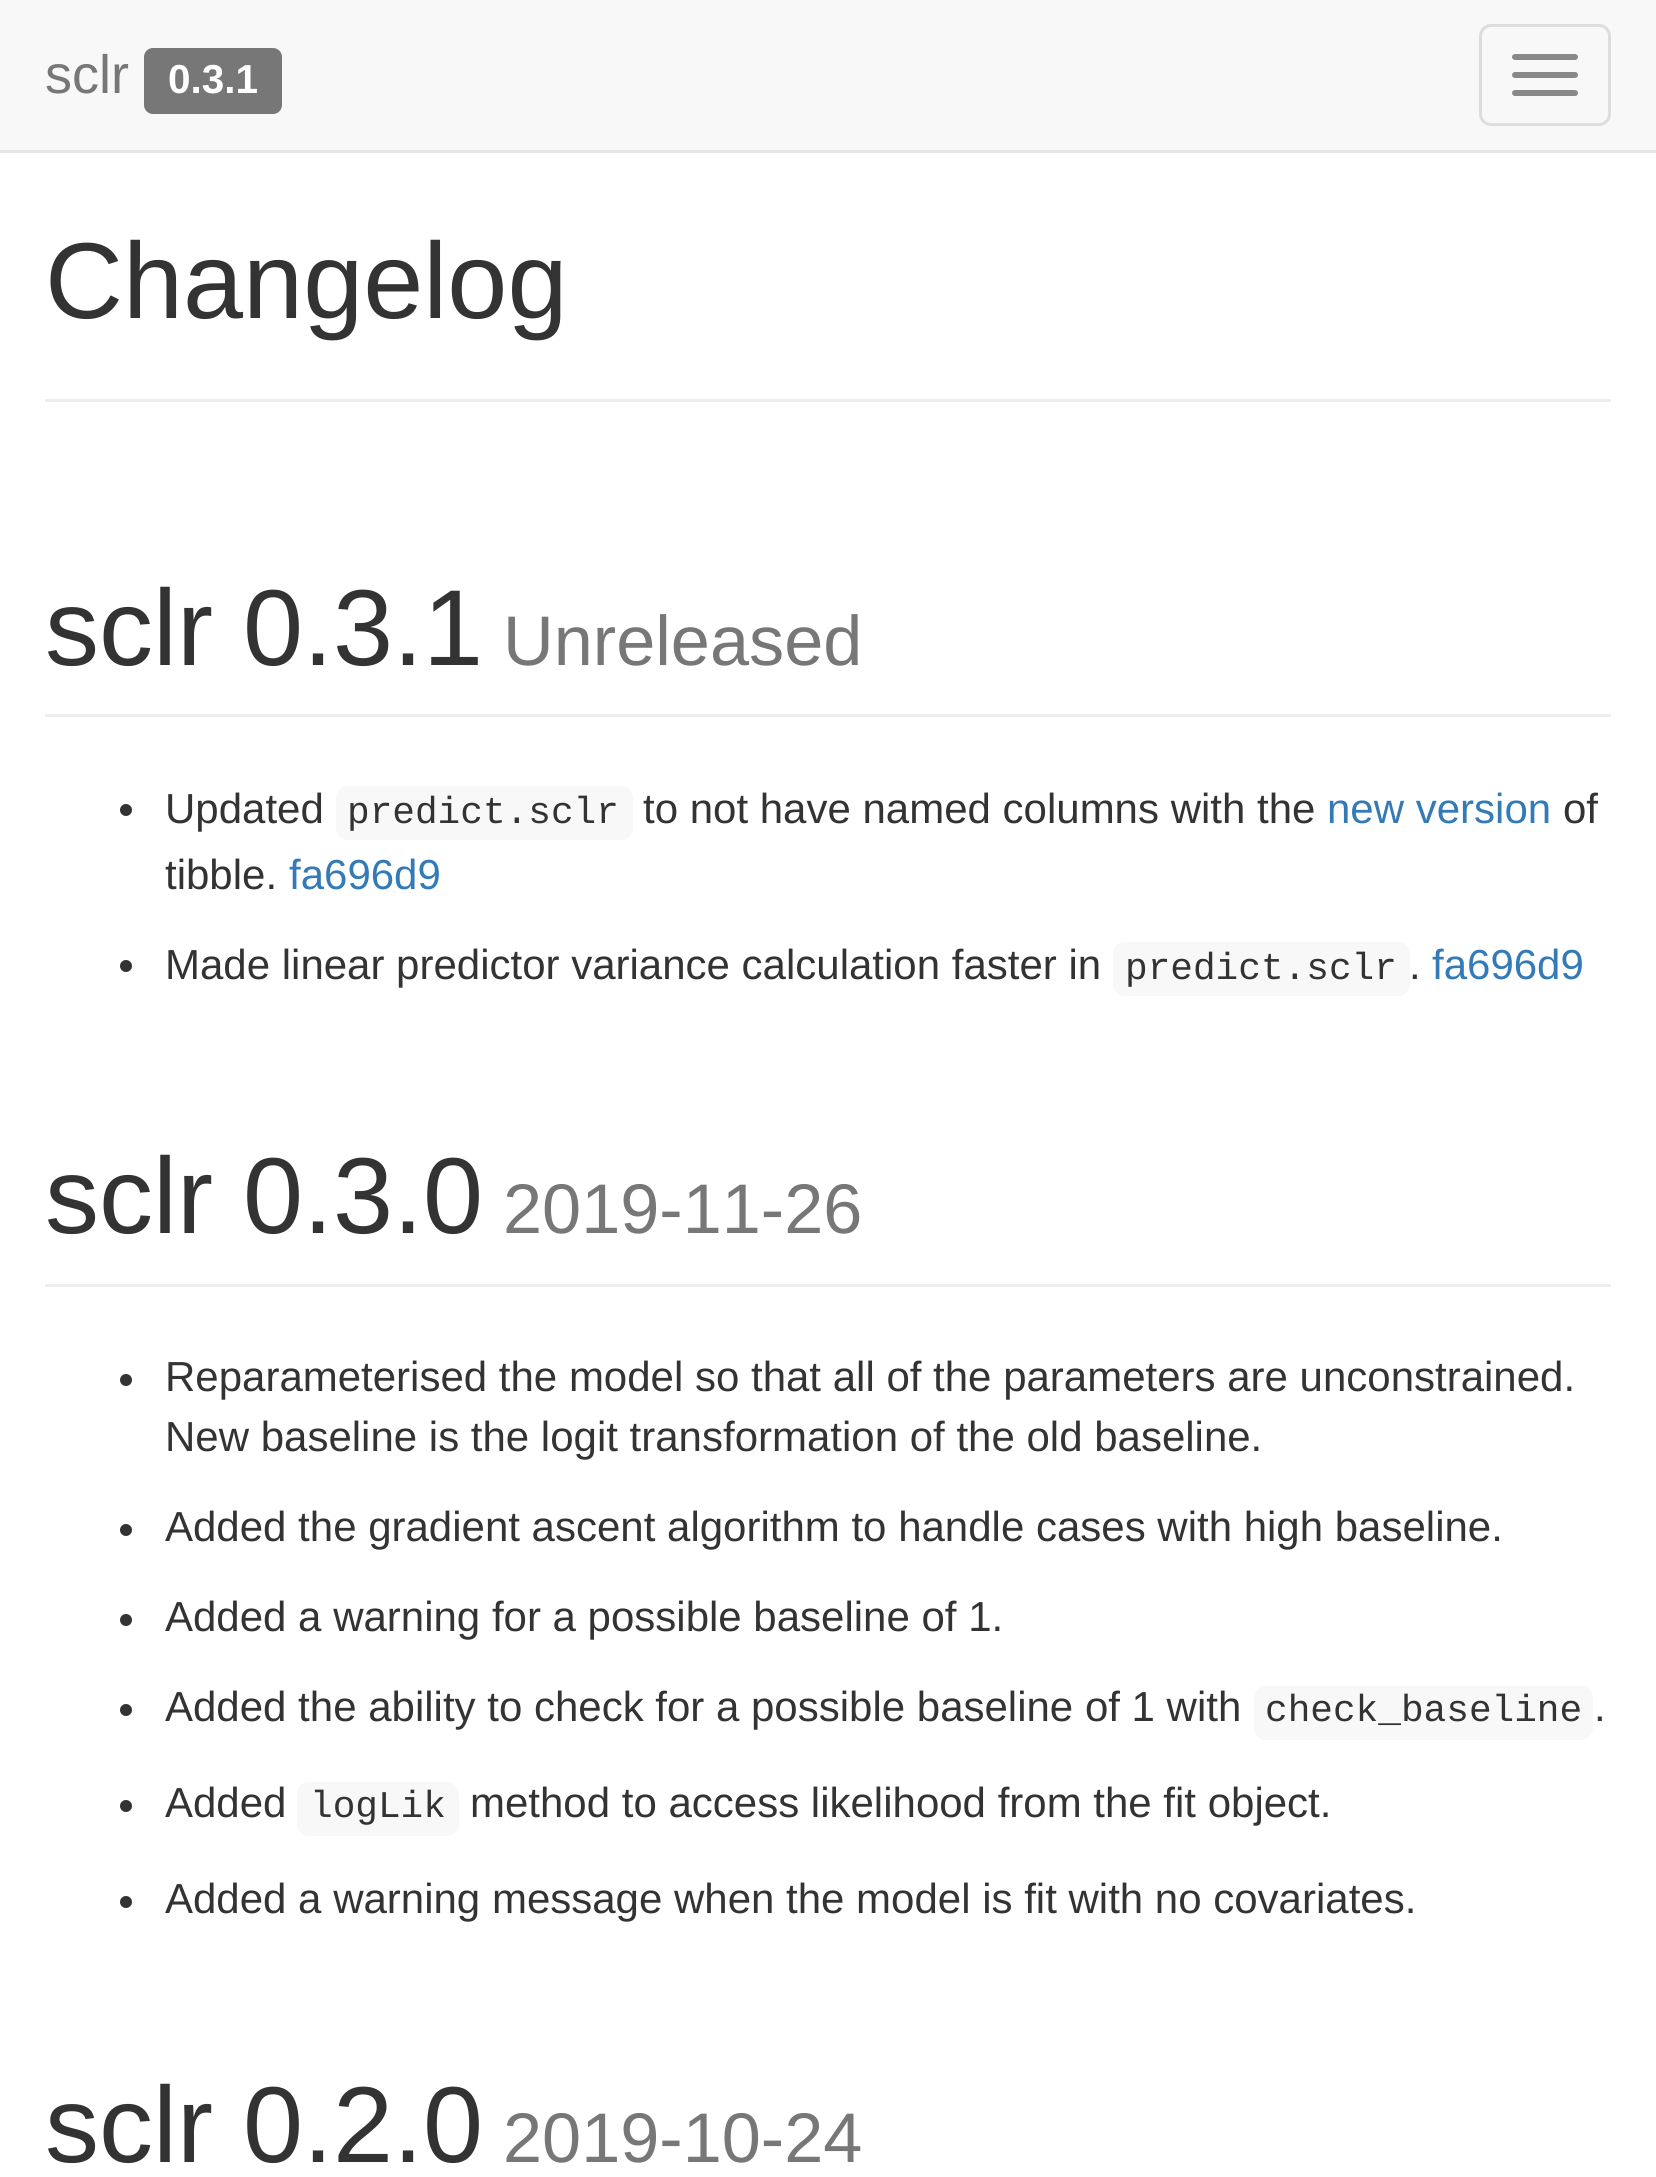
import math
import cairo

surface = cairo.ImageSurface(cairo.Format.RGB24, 1656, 2177)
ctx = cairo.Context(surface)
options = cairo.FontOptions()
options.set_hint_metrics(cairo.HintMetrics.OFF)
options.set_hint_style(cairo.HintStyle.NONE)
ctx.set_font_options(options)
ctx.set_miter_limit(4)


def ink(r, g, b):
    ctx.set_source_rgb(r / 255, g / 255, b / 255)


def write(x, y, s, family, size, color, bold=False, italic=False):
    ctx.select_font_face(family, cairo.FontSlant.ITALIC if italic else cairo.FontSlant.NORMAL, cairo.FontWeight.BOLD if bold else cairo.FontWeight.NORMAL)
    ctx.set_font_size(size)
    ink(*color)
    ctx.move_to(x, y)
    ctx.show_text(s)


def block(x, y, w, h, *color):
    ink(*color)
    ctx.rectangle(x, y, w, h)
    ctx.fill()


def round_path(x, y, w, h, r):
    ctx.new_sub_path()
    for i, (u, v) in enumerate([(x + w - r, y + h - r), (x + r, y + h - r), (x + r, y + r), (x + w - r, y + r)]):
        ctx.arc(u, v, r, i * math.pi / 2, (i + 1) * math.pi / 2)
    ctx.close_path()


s1 = dict(family="Liberation Sans", size=54, color=(119, 119, 119))
s2 = dict(family="Liberation Sans", size=40.5, color=(255, 255, 255), bold=True)
s3 = dict(family="Liberation Sans", size=108, color=(51, 51, 51))
s4 = dict(family="Liberation Sans", size=70.25, color=(119, 119, 119))
s5 = dict(family="Liberation Sans", size=42, color=(51, 51, 51))
s6 = dict(family="Liberation Mono", size=37.75, color=(51, 51, 51))
s7 = dict(family="Liberation Sans", size=42, color=(51, 122, 183))

ink(255, 255, 255)
ctx.paint()
block(0, 0, 1656, 150, 248, 248, 248)
block(0, 150, 1656, 3, 231, 231, 231)
write(45, 93, "sclr", **s1)
round_path(144, 48, 138, 66, 9)
ctx.fill()
write(168, 93, "0.3.1", **s2)
round_path(1480.5, 25.5, 129, 99, 10.5)
ink(221, 221, 221)
ctx.set_line_width(3)
ctx.stroke()
ink(136, 136, 136)
round_path(1512, 54, 66, 6, 3)
ctx.fill()
round_path(1512, 72, 66, 6, 3)
ctx.fill()
round_path(1512, 90, 66, 6, 3)
ctx.fill()
block(45, 399, 1566, 3, 238, 238, 238)
write(45, 318, "Changelog", **s3)
block(45, 714, 1566, 3, 238, 238, 238)
write(45, 665, "sclr 0.3.1", **s3)
write(503, 665, "Unreleased", **s4)
ink(51, 51, 51)
ctx.new_path()
ctx.arc(126, 810, 6, 0, 2 * math.pi)
ctx.fill()
write(165, 823, "Updated", **s5)
ink(248, 248, 248)
round_path(336, 786, 297, 54, 12)
ctx.fill()
write(347, 823, "predict.sclr", **s6)
write(643, 823, "to not have named columns with the", **s5)
write(1327, 823, "new version", **s7)
write(1563, 823, "of", **s5)
write(165, 889, "tibble.", **s5)
write(289, 889, "fa696d9", **s7)
ink(51, 51, 51)
ctx.new_path()
ctx.arc(126, 966, 6, 0, 2 * math.pi)
ctx.fill()
write(165, 979, "Made linear predictor variance calculation faster in", **s5)
ink(248, 248, 248)
round_path(1113, 942, 297, 54, 12)
ctx.fill()
write(1125, 979, "predict.sclr", **s6)
write(1409, 979, ".", **s5)
write(1432, 979, "fa696d9", **s7)
block(45, 1284, 1566, 3, 238, 238, 238)
write(45, 1233, "sclr 0.3.0", **s3)
write(503, 1233, "2019-11-26", **s4)
ink(51, 51, 51)
ctx.new_path()
ctx.arc(126, 1380, 6, 0, 2 * math.pi)
ctx.fill()
write(165, 1391, "Reparameterised the model so that all of the parameters are unconstrained.", **s5)
write(165, 1451, "New baseline is the logit transformation of the old baseline.", **s5)
ctx.new_path()
ctx.arc(126, 1530, 6, 0, 2 * math.pi)
ctx.fill()
write(165, 1541, "Added the gradient ascent algorithm to handle cases with high baseline.", **s5)
ctx.new_path()
ctx.arc(126, 1620, 6, 0, 2 * math.pi)
ctx.fill()
write(165, 1631, "Added a warning for a possible baseline of 1.", **s5)
ctx.new_path()
ctx.arc(126, 1710, 6, 0, 2 * math.pi)
ctx.fill()
write(165, 1721, "Added the ability to check for a possible baseline of 1 with", **s5)
ink(248, 248, 248)
round_path(1254, 1686, 339, 54, 12)
ctx.fill()
write(1265, 1721, "check_baseline", **s6)
write(1594, 1721, ".", **s5)
ctx.new_path()
ctx.arc(126, 1806, 6, 0, 2 * math.pi)
ctx.fill()
write(165, 1817, "Added", **s5)
ink(248, 248, 248)
round_path(297, 1782, 162, 54, 12)
ctx.fill()
write(310, 1817, "logLik", **s6)
write(470, 1817, "method to access likelihood from the fit object.", **s5)
ctx.new_path()
ctx.arc(126, 1902, 6, 0, 2 * math.pi)
ctx.fill()
write(165, 1913, "Added a warning message when the model is fit with no covariates.", **s5)
write(45, 2162, "sclr 0.2.0", **s3)
write(503, 2162, "2019-10-24", **s4)
surface.write_to_png("screenshot.png")
